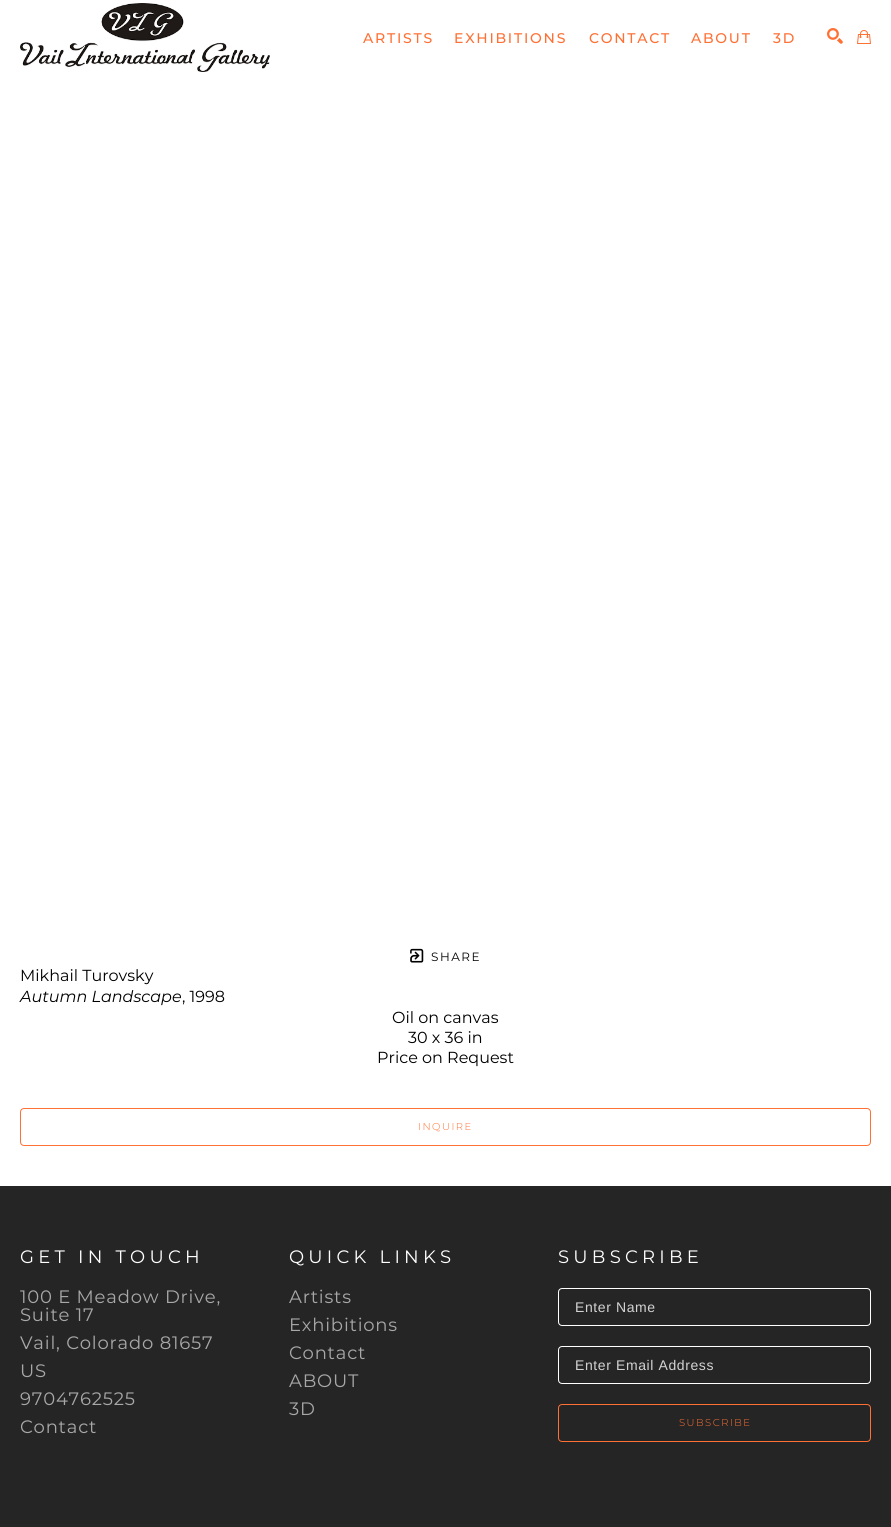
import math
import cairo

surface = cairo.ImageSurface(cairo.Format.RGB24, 891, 1527)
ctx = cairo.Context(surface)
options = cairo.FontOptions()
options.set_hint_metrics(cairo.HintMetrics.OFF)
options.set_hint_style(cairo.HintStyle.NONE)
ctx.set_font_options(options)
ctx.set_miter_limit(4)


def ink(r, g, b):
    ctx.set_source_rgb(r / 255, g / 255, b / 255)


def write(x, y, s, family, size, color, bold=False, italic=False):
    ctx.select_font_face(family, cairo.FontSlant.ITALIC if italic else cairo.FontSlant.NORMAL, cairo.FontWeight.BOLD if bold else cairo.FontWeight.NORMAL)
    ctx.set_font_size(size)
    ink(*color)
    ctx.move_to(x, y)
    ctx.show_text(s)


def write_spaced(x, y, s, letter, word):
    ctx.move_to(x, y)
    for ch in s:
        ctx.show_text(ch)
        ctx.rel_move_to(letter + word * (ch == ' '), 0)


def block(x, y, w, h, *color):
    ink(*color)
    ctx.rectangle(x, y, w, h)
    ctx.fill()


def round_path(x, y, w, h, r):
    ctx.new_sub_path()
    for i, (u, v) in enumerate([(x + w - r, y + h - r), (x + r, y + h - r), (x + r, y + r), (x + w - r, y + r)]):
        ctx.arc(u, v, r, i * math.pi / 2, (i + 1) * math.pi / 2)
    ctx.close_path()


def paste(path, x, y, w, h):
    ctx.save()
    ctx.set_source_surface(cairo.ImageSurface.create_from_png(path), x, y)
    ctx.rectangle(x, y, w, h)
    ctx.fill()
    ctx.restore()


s1 = dict(family="Montserrat", size=16, color=(0, 0, 0))
s2 = dict(family="Montserrat", size=16, color=(0, 0, 0), italic=True)

ink(255, 255, 255)
ctx.paint()
paste("pic1.png", 20, 3, 250, 69)
ctx.select_font_face("Montserrat Medium")
ctx.set_font_size(14)
ink(255, 112, 52)
write_spaced(363, 43, "ARTISTS", 1.75, 0)
write_spaced(454, 43, "EXHIBITIONS", 1.75, 0)
write_spaced(589, 43, "CONTACT", 1.75, 0)
write_spaced(691, 43, "ABOUT", 1.75, 0)
write_spaced(773, 43, "3D", 1.75, 0)
paste("pic2.png", 827, 28, 16, 16)
paste("pic3.png", 857, 30, 14, 14)
paste("pic4.png", 410, 948, 14, 15)
ctx.select_font_face("Montserrat")
ctx.set_font_size(12)
ink(0, 0, 0)
write_spaced(431, 961, "SHARE", 1.5, 0)
write(20, 981, "Mikhail Turovsky", **s1)
write(20, 1002, "Autumn Landscape", **s2)
write(182, 1002, ", 1998", **s1)
write(392, 1023, "Oil on canvas", **s1)
write(408, 1043, "30 x 36 in", **s1)
write(377, 1063, "Price on Request", **s1)
round_path(20.5, 1108.5, 850, 37, 3.5)
ink(255, 112, 52)
ctx.set_line_width(1)
ctx.stroke()
ctx.select_font_face("Montserrat Light")
ctx.set_font_size(10)
write_spaced(418, 1130, "INQUIRE", 1.5, 0)
block(0, 1186, 891, 341, 37, 37, 37)
ctx.select_font_face("Montserrat")
ctx.set_font_size(18)
ink(255, 255, 255)
write_spaced(20, 1263, "GET IN TOUCH", 4.25, 0)
ink(168, 168, 168)
write_spaced(20, 1303, "100 E Meadow Drive,", 0.8, 0)
write_spaced(20, 1321, "Suite 17", 0.8, 0)
write_spaced(20, 1349, "Vail, Colorado 81657", 0.8, 0)
write_spaced(20, 1377, "US", 0.8, 0)
write_spaced(20, 1405, "9704762525", 0.8, 0)
write_spaced(20, 1433, "Contact", 0.8, 0)
ink(255, 255, 255)
write_spaced(289, 1263, "QUICK LINKS", 4.25, 0)
ink(168, 168, 168)
write_spaced(289, 1303, "Artists", 0.8, 0)
write_spaced(289, 1331, "Exhibitions", 0.8, 0)
write_spaced(289, 1359, "Contact", 0.8, 0)
write_spaced(289, 1387, "ABOUT", 0.8, 0)
write_spaced(289, 1415, "3D", 0.8, 0)
ink(255, 255, 255)
write_spaced(558, 1263, "SUBSCRIBE", 4.25, 0)
round_path(558.5, 1288.5, 312, 37, 3.5)
ctx.stroke()
ctx.select_font_face("Liberation Sans")
ctx.set_font_size(14)
ink(211, 211, 211)
write_spaced(575, 1312, "Enter Name", 0.6, 0)
round_path(558.5, 1346.5, 312, 37, 3.5)
ink(255, 255, 255)
ctx.stroke()
ink(211, 211, 211)
write_spaced(575, 1370, "Enter Email Address", 0.6, 0)
round_path(558.5, 1404.5, 312, 37, 3.5)
ink(255, 112, 52)
ctx.stroke()
ctx.select_font_face("Montserrat Light")
ctx.set_font_size(10)
write_spaced(679, 1426, "SUBSCRIBE", 1.5, 0)
surface.write_to_png("screenshot.png")
